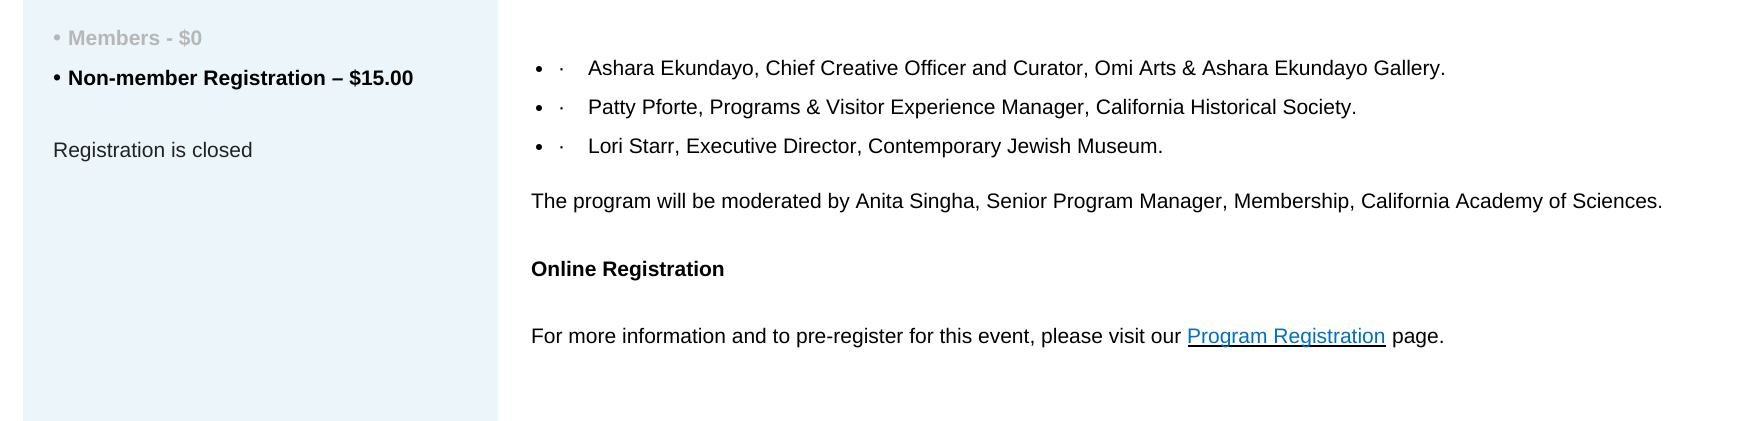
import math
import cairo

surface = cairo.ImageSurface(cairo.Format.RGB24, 1741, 421)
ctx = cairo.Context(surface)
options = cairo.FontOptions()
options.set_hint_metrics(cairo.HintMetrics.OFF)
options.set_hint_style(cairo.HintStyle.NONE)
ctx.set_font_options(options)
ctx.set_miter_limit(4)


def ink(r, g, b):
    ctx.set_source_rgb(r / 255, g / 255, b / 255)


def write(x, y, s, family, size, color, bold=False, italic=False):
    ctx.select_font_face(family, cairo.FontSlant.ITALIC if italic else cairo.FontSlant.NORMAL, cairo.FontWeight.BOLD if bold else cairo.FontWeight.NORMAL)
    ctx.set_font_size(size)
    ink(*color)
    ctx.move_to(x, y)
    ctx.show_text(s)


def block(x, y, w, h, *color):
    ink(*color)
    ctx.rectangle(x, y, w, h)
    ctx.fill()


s1 = dict(family="Liberation Sans", size=23, color=(183, 183, 183))
s2 = dict(family="Liberation Sans", size=21, color=(183, 183, 183), bold=True)
s3 = dict(family="Liberation Sans", size=23, color=(0, 0, 0))
s4 = dict(family="Liberation Sans", size=21, color=(0, 0, 0), bold=True)
s5 = dict(family="Liberation Sans", size=21, color=(34, 34, 34))
s6 = dict(family="Liberation Sans", size=21, color=(0, 0, 0))
s7 = dict(family="Liberation Sans", size=21, color=(0, 112, 192))

ink(255, 255, 255)
ctx.paint()
block(23, 0, 475, 421, 235, 245, 250)
write(53, 45, "•", **s1)
write(68, 45, "Members - $0", **s2)
write(53, 85, "•", **s3)
write(68, 85, "Non-member Registration – $15.00", **s4)
write(53, 157, "Registration is closed", **s5)
ink(0, 0, 0)
ctx.new_path()
ctx.arc(539, 69, 3, 0, 2 * math.pi)
ctx.fill()
write(558, 75, "·", **s6)
write(588, 75, "Ashara Ekundayo, Chief Creative Officer and Curator, Omi Arts & Ashara Ekundayo Gallery.", **s6)
ctx.new_path()
ctx.arc(539, 108, 3, 0, 2 * math.pi)
ctx.fill()
write(558, 114, "·", **s6)
write(588, 114, "Patty Pforte, Programs & Visitor Experience Manager, California Historical Society.", **s6)
ctx.new_path()
ctx.arc(539, 147, 3, 0, 2 * math.pi)
ctx.fill()
write(558, 153, "·", **s6)
write(588, 153, "Lori Starr, Executive Director, Contemporary Jewish Museum.", **s6)
write(531, 208, "The program will be moderated by Anita Singha, Senior Program Manager, Membership, California Academy of Sciences.", **s6)
write(531, 276, "Online Registration", **s4)
write(531, 343, "For more information and to pre-register for this event, please visit our", **s6)
block(1188, 345, 198, 2, 0, 0, 0)
write(1187, 343, "Program Registration", **s7)
write(1392, 343, "page.", **s6)
surface.write_to_png("screenshot.png")
